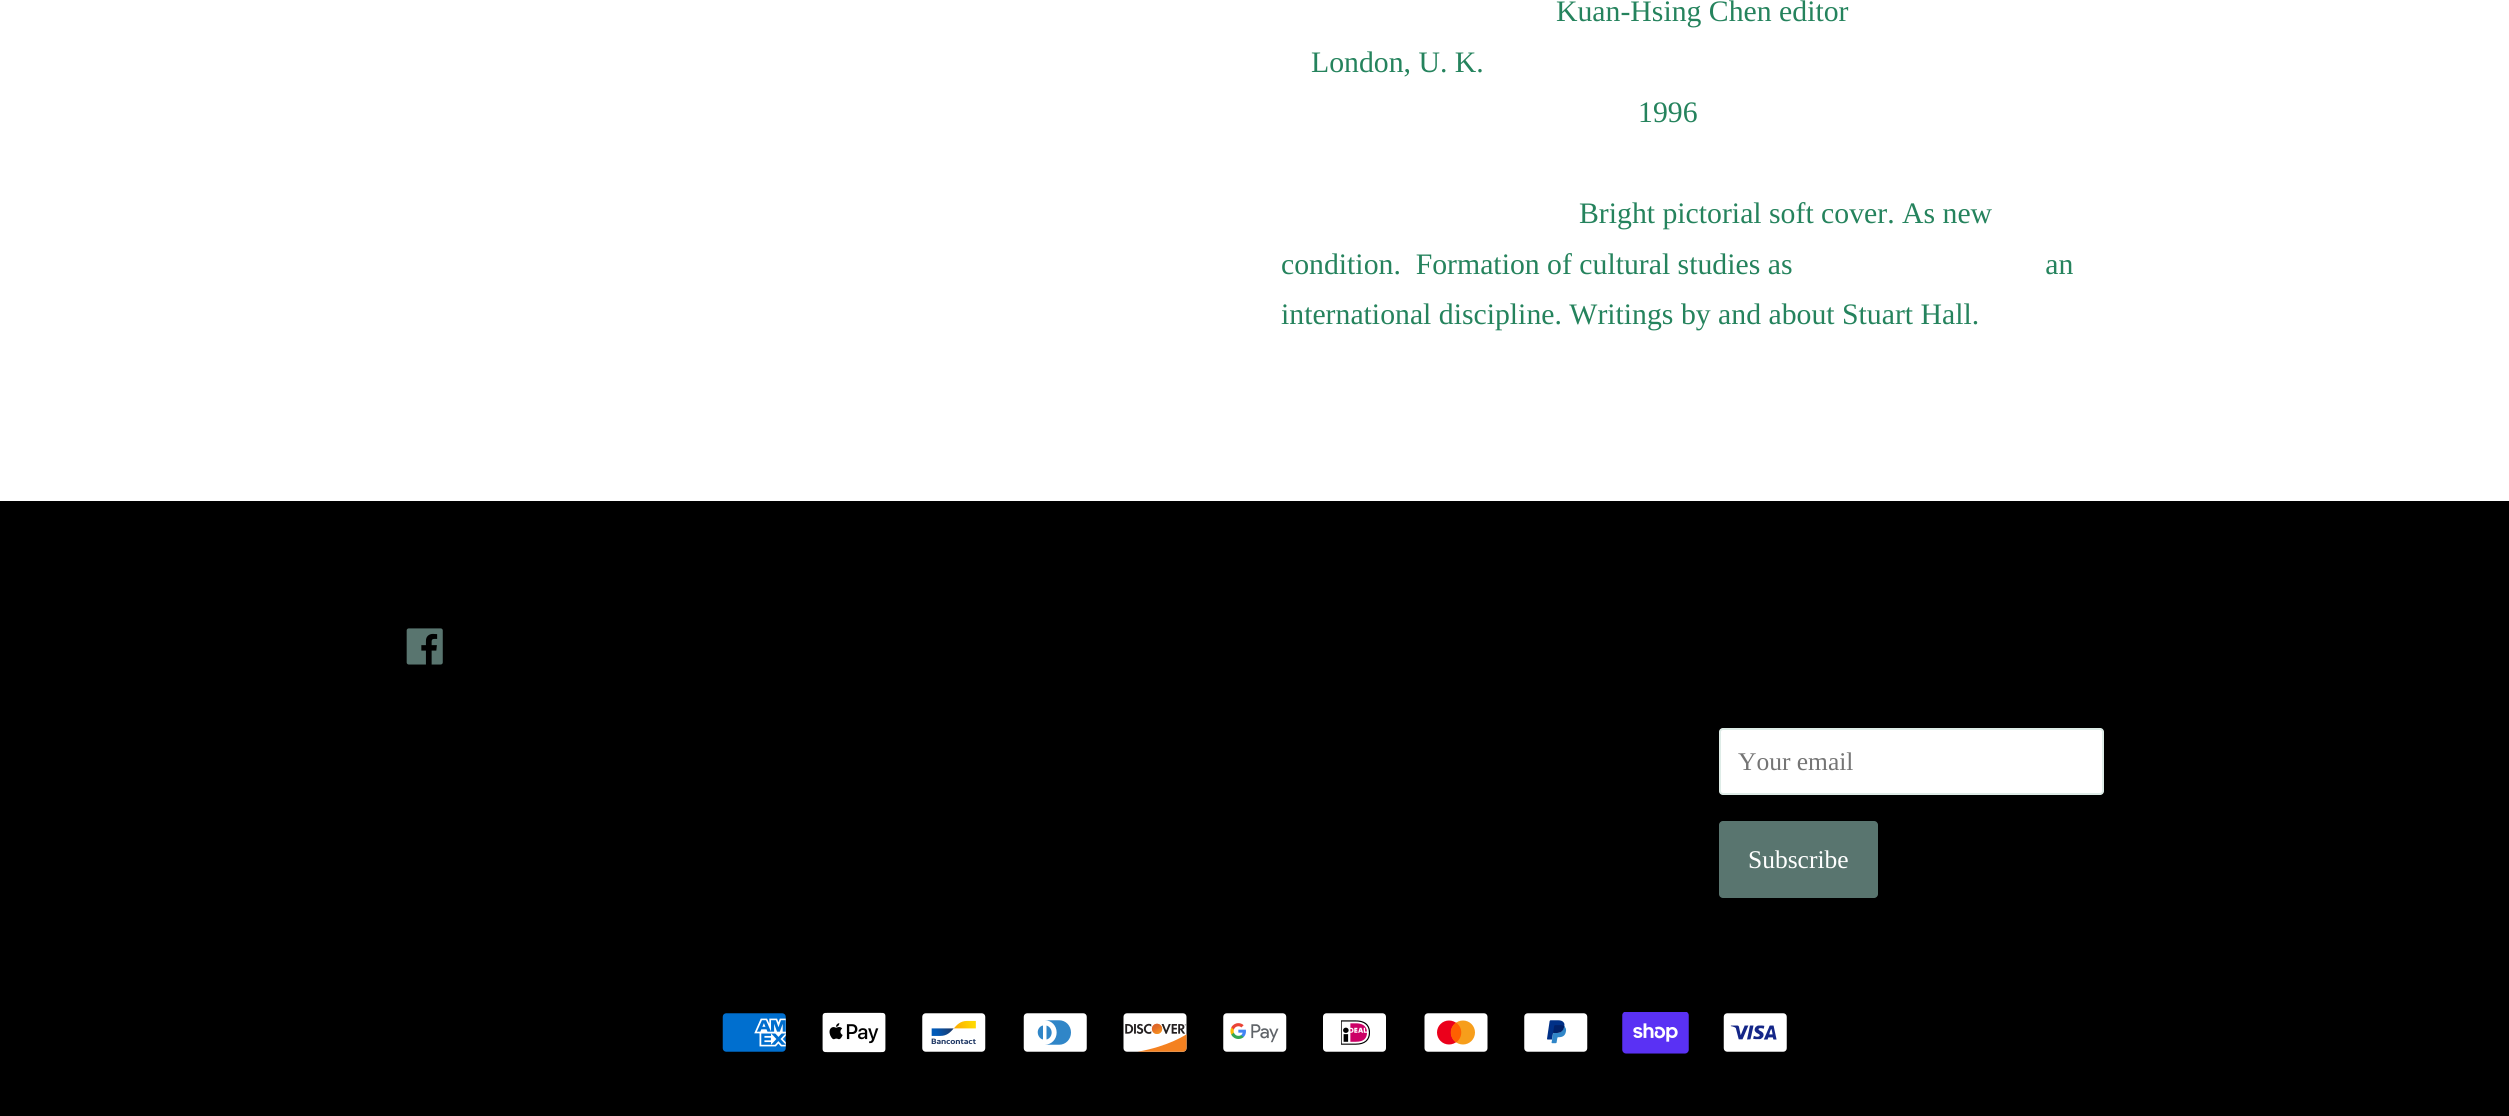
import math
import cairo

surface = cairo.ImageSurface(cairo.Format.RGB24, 2509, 1116)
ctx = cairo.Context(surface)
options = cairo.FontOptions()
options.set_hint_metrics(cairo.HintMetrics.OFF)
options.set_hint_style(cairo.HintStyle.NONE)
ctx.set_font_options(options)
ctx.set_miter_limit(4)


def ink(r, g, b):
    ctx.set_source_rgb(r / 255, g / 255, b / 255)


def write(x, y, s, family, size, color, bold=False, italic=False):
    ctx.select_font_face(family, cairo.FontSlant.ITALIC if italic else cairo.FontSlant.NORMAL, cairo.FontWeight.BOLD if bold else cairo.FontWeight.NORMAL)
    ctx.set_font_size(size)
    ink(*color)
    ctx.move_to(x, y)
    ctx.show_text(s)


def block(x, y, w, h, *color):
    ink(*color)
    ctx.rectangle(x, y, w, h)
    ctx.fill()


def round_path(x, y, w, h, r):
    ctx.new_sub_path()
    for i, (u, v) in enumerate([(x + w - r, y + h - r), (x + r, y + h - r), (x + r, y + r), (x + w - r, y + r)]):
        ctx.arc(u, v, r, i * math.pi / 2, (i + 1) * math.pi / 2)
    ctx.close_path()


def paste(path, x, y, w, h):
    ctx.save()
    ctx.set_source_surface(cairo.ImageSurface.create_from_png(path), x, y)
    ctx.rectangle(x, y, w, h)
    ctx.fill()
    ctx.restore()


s1 = dict(family="Liberation Serif", size=29.75, color=(37, 131, 93))
s2 = dict(family="Liberation Serif", size=25.5, color=(117, 117, 117))
s3 = dict(family="Liberation Serif", size=25.5, color=(255, 255, 255))

ink(255, 255, 255)
ctx.paint()
write(1556, 21, "Kuan-Hsing Chen editor", **s1)
write(1311, 72, "London, U. K.", **s1)
write(1638, 122, "1996", **s1)
write(1579, 223, "Bright pictorial soft cover. As new", **s1)
write(1281, 274, "condition.  Formation of cultural studies as                                  an", **s1)
write(1281, 324, "international discipline. Writings by and about Stuart Hall.", **s1)
block(0, 501, 2509, 615, 0, 0, 0)
paste("pic1.png", 406, 628, 37, 37)
ink(255, 255, 255)
round_path(1719, 728, 385, 67, 4)
ctx.fill()
round_path(1720, 729, 383, 65, 3)
ctx.set_source_rgba(0.145, 0.514, 0.365, 0.15)
ctx.stroke()
write(1738, 770, "Your email", **s2)
ink(89, 117, 111)
round_path(1719, 821, 159, 77, 4)
ctx.fill()
write(1748, 868, "Subscribe", **s3)
paste("pic2.png", 722, 1013, 64, 39)
paste("pic3.png", 822, 1012, 64, 41)
paste("pic4.png", 922, 1013, 64, 39)
paste("pic5.png", 1023, 1013, 64, 39)
paste("pic6.png", 1123, 1013, 64, 39)
paste("pic7.png", 1223, 1013, 64, 39)
paste("pic8.png", 1323, 1013, 63, 39)
paste("pic9.png", 1424, 1013, 64, 39)
paste("pic10.png", 1524, 1013, 64, 39)
paste("pic11.png", 1622, 1012, 67, 42)
paste("pic12.png", 1723, 1013, 64, 39)
surface.write_to_png("screenshot.png")
